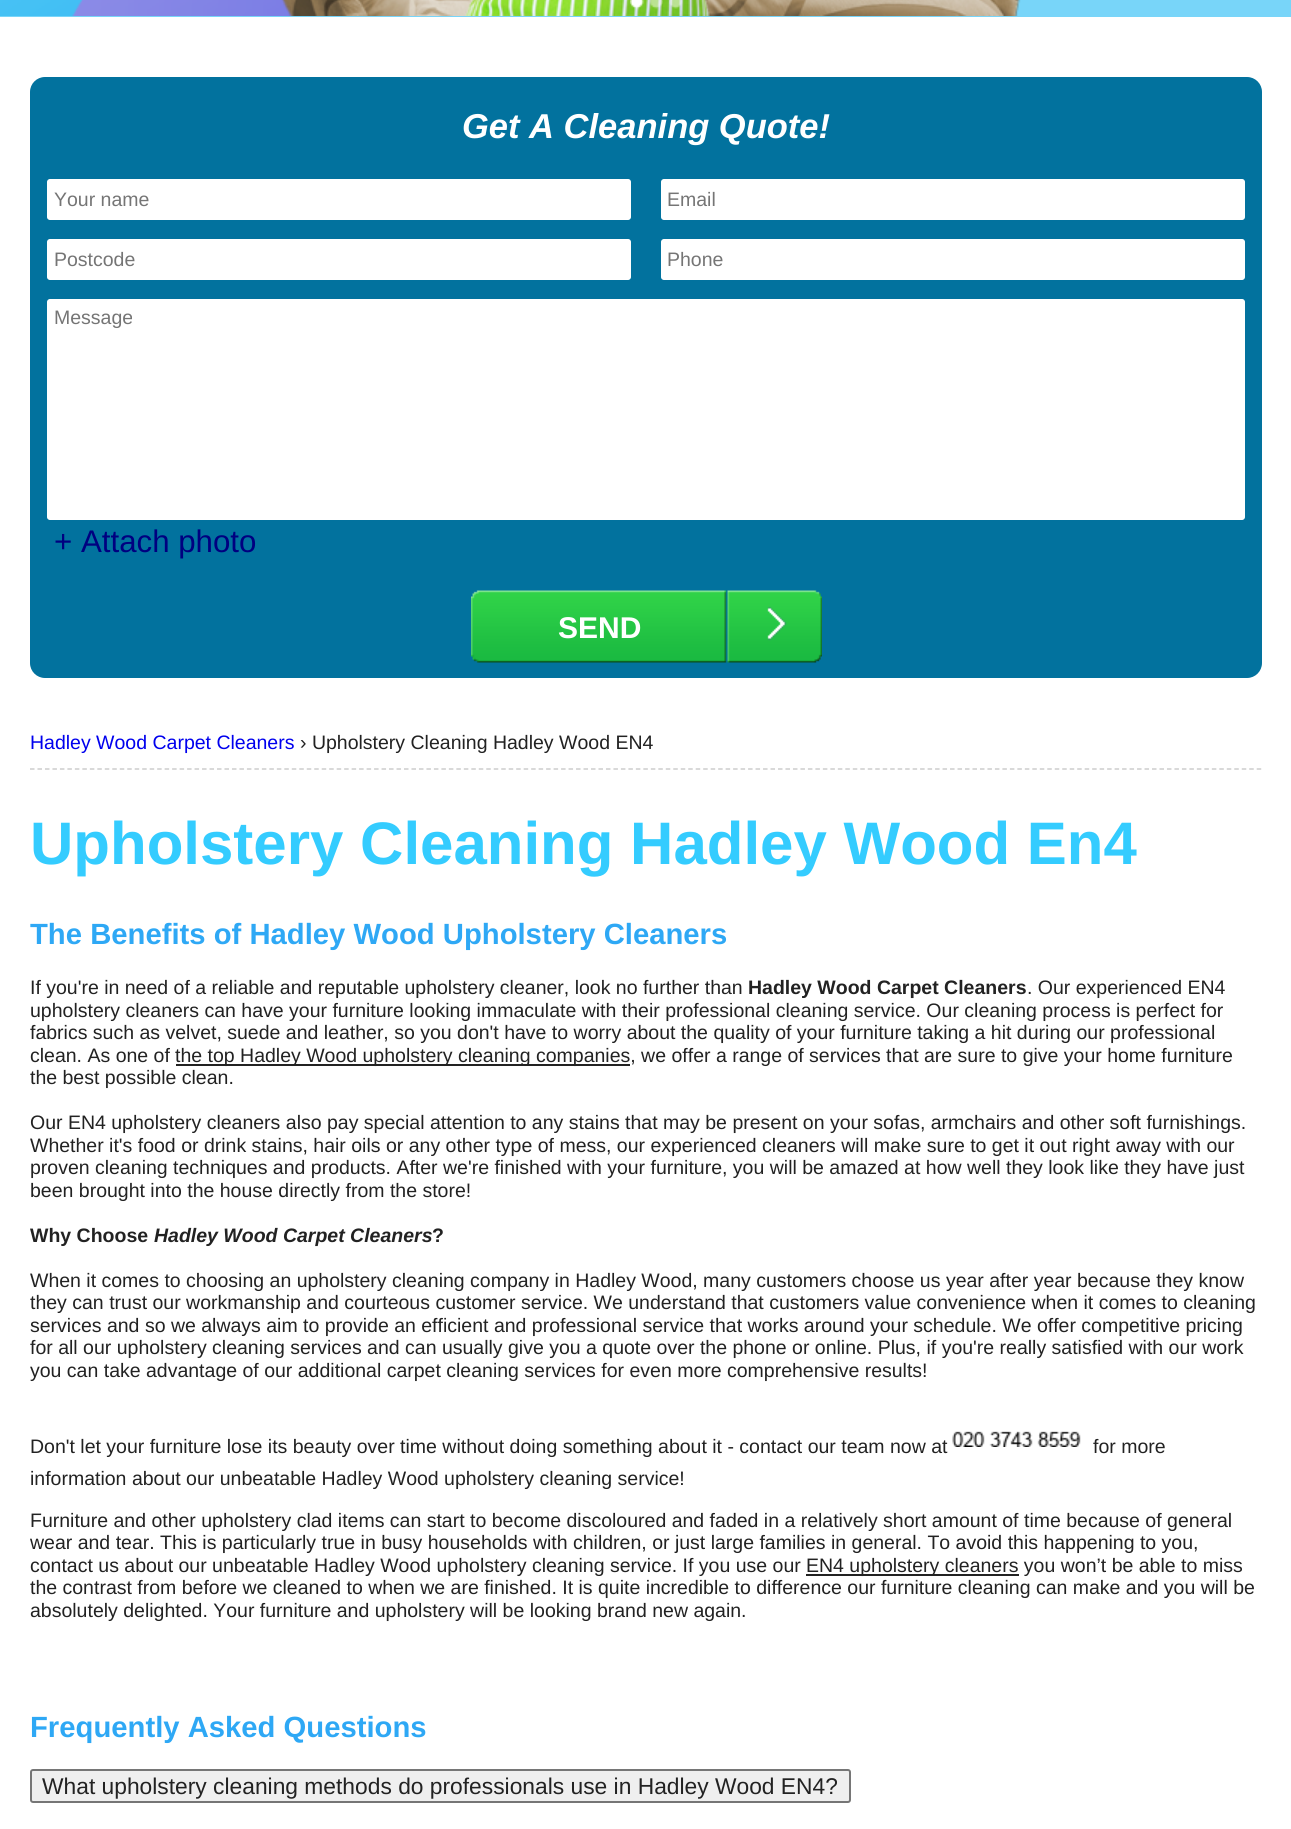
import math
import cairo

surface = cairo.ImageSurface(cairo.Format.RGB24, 1291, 1829)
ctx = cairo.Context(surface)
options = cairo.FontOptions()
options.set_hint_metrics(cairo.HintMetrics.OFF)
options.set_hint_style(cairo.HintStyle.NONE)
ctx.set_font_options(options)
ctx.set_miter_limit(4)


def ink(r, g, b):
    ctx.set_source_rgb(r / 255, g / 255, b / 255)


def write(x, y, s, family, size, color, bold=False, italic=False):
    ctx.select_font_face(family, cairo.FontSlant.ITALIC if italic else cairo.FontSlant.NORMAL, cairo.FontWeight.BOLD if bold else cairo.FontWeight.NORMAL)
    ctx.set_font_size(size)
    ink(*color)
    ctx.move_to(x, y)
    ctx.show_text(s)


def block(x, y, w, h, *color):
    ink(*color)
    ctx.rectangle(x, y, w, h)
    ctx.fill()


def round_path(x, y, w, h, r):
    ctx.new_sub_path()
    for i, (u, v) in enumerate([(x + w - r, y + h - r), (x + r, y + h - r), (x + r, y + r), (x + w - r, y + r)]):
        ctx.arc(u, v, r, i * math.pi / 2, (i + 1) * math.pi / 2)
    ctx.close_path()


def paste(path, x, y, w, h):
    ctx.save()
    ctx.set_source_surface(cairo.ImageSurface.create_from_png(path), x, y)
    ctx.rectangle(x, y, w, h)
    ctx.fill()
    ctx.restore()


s1 = dict(family="Liberation Sans", size=34.5, color=(255, 255, 255), bold=True, italic=True)
s2 = dict(family="Liberation Sans", size=19.5, color=(117, 117, 117))
s3 = dict(family="Liberation Sans", size=31.25, color=(0, 0, 128))
s4 = dict(family="Liberation Sans", size=30, color=(255, 255, 255), bold=True)
s5 = dict(family="Liberation Sans", size=19.5, color=(0, 0, 238))
s6 = dict(family="Liberation Sans", size=19.5, color=(34, 34, 34))
s7 = dict(family="Liberation Sans", size=60, color=(52, 204, 255), bold=True)
s8 = dict(family="Liberation Sans", size=29.25, color=(46, 168, 245), bold=True)
s9 = dict(family="Liberation Sans", size=19.5, color=(34, 34, 34), bold=True)
s10 = dict(family="Liberation Sans", size=19.5, color=(34, 34, 34), bold=True, italic=True)
s11 = dict(family="Liberation Sans", size=22.8, color=(34, 34, 34))

ink(255, 255, 255)
ctx.paint()
block(0, 0, 1291, 17, 120, 213, 249)
paste("pic1.png", 0, 0, 295, 16)
paste("pic2.png", 281, 0, 740, 16)
paste("pic3.png", 630, 0, 14, 9)
paste("pic4.png", 649, 0, 14, 9)
paste("pic5.png", 669, 0, 14, 9)
ink(2, 114, 158)
round_path(30, 77, 1232, 601, 15)
ctx.fill()
write(462, 138, "Get A Cleaning Quote!", **s1)
round_path(46, 178, 586, 43, 4)
ctx.fill_preserve()
ink(2, 114, 158)
ctx.stroke()
write(54, 206, "Your name", **s2)
ink(255, 255, 255)
round_path(660, 178, 586, 43, 4)
ctx.fill_preserve()
ink(2, 114, 158)
ctx.stroke()
write(667, 206, "Email", **s2)
ink(255, 255, 255)
round_path(46, 238, 586, 43, 4)
ctx.fill_preserve()
ink(2, 114, 158)
ctx.stroke()
write(54, 266, "Postcode", **s2)
ink(255, 255, 255)
round_path(660, 238, 586, 43, 4)
ctx.fill_preserve()
ink(2, 114, 158)
ctx.stroke()
write(667, 266, "Phone", **s2)
ink(255, 255, 255)
round_path(46, 298, 1200, 223, 4)
ctx.fill_preserve()
ink(2, 114, 158)
ctx.stroke()
write(54, 324, "Message", **s2)
write(54, 552, "+ Attach photo", **s3)
paste("pic6.png", 471, 590, 351, 73)
write(558, 638, "SEND", **s4)
ctx.new_path()
ctx.move_to(30, 769)
ctx.line_to(1261.5, 769)
ink(204, 204, 204)
ctx.set_line_width(1.5)
ctx.set_dash([4.5, 2.98])
ctx.stroke()
write(30, 749, "Hadley Wood Carpet Cleaners", **s5)
write(300, 749, "› Upholstery Cleaning Hadley Wood EN4", **s6)
write(30, 864, "Upholstery Cleaning Hadley Wood En4", **s7)
write(30, 944, "The Benefits of Hadley Wood Upholstery Cleaners", **s8)
write(30, 994, "If you're in need of a reliable and reputable upholstery cleaner, look no further than", **s6)
write(748, 994, "Hadley Wood Carpet Cleaners", **s9)
write(1027, 994, ". Our experienced EN4", **s6)
write(30, 1017, "upholstery cleaners can have your furniture looking immaculate with their professional cleaning service. Our cleaning process is perfect for", **s6)
write(30, 1039, "fabrics such as velvet, suede and leather, so you don't have to worry about the quality of your furniture taking a hit during our professional", **s6)
write(30, 1062, "clean. As one of", **s6)
block(176, 1064, 454, 2, 34, 34, 34)
write(175, 1062, "the top Hadley Wood upholstery cleaning companies, we offer a range of services that are sure to give your home furniture", **s6)
write(30, 1084, "the best possible clean.", **s6)
write(30, 1129, "Our EN4 upholstery cleaners also pay special attention to any stains that may be present on your sofas, armchairs and other soft furnishings.", **s6)
write(30, 1152, "Whether it's food or drink stains, hair oils or any other type of mess, our experienced cleaners will make sure to get it out right away with our", **s6)
write(30, 1174, "proven cleaning techniques and products. After we're finished with your furniture, you will be amazed at how well they look like they have just", **s6)
write(30, 1197, "been brought into the house directly from the store!", **s6)
write(30, 1242, "Why Choose", **s9)
write(154, 1242, "Hadley Wood Carpet Cleaners", **s10)
write(432, 1242, "?", **s9)
write(30, 1287, "When it comes to choosing an upholstery cleaning company in Hadley Wood, many customers choose us year after year because they know", **s6)
write(30, 1309, "they can trust our workmanship and courteous customer service. We understand that customers value convenience when it comes to cleaning", **s6)
write(30, 1332, "services and so we always aim to provide an efficient and professional service that works around your schedule. We offer competitive pricing", **s6)
write(30, 1354, "for all our upholstery cleaning services and can usually give you a quote over the phone or online. Plus, if you're really satisfied with our work", **s6)
write(30, 1377, "you can take advantage of our additional carpet cleaning services for even more comprehensive results!", **s6)
write(30, 1453, "Don't let your furniture lose its beauty over time without doing something about it - contact our team now at", **s6)
paste("pic7.png", 952, 1431, 129, 16)
write(1093, 1453, "for more", **s6)
write(30, 1485, "information about our unbeatable Hadley Wood upholstery cleaning service!", **s6)
write(30, 1527, "Furniture and other upholstery clad items can start to become discoloured and faded in a relatively short amount of time because of general", **s6)
write(30, 1549, "wear and tear. This is particularly true in busy households with children, or just large families in general. To avoid this happening to you,", **s6)
write(30, 1572, "contact us about our unbeatable Hadley Wood upholstery cleaning service. If you use our", **s6)
block(806, 1574, 213, 2, 34, 34, 34)
write(806, 1572, "EN4 upholstery cleaners you won’t be able to miss", **s6)
write(30, 1594, "the contrast from before we cleaned to when we are finished. It is quite incredible to difference our furniture cleaning can make and you will be", **s6)
write(30, 1617, "absolutely delighted. Your furniture and upholstery will be looking brand new again.", **s6)
write(30, 1737, "Frequently Asked Questions", **s8)
ink(239, 239, 239)
round_path(31, 1770, 819, 32, 2)
ctx.fill_preserve()
ink(118, 118, 118)
ctx.set_line_width(2)
ctx.set_dash([])
ctx.stroke()
write(42, 1794, "What upholstery cleaning methods do professionals use in Hadley Wood EN4?", **s11)
surface.write_to_png("screenshot.png")
